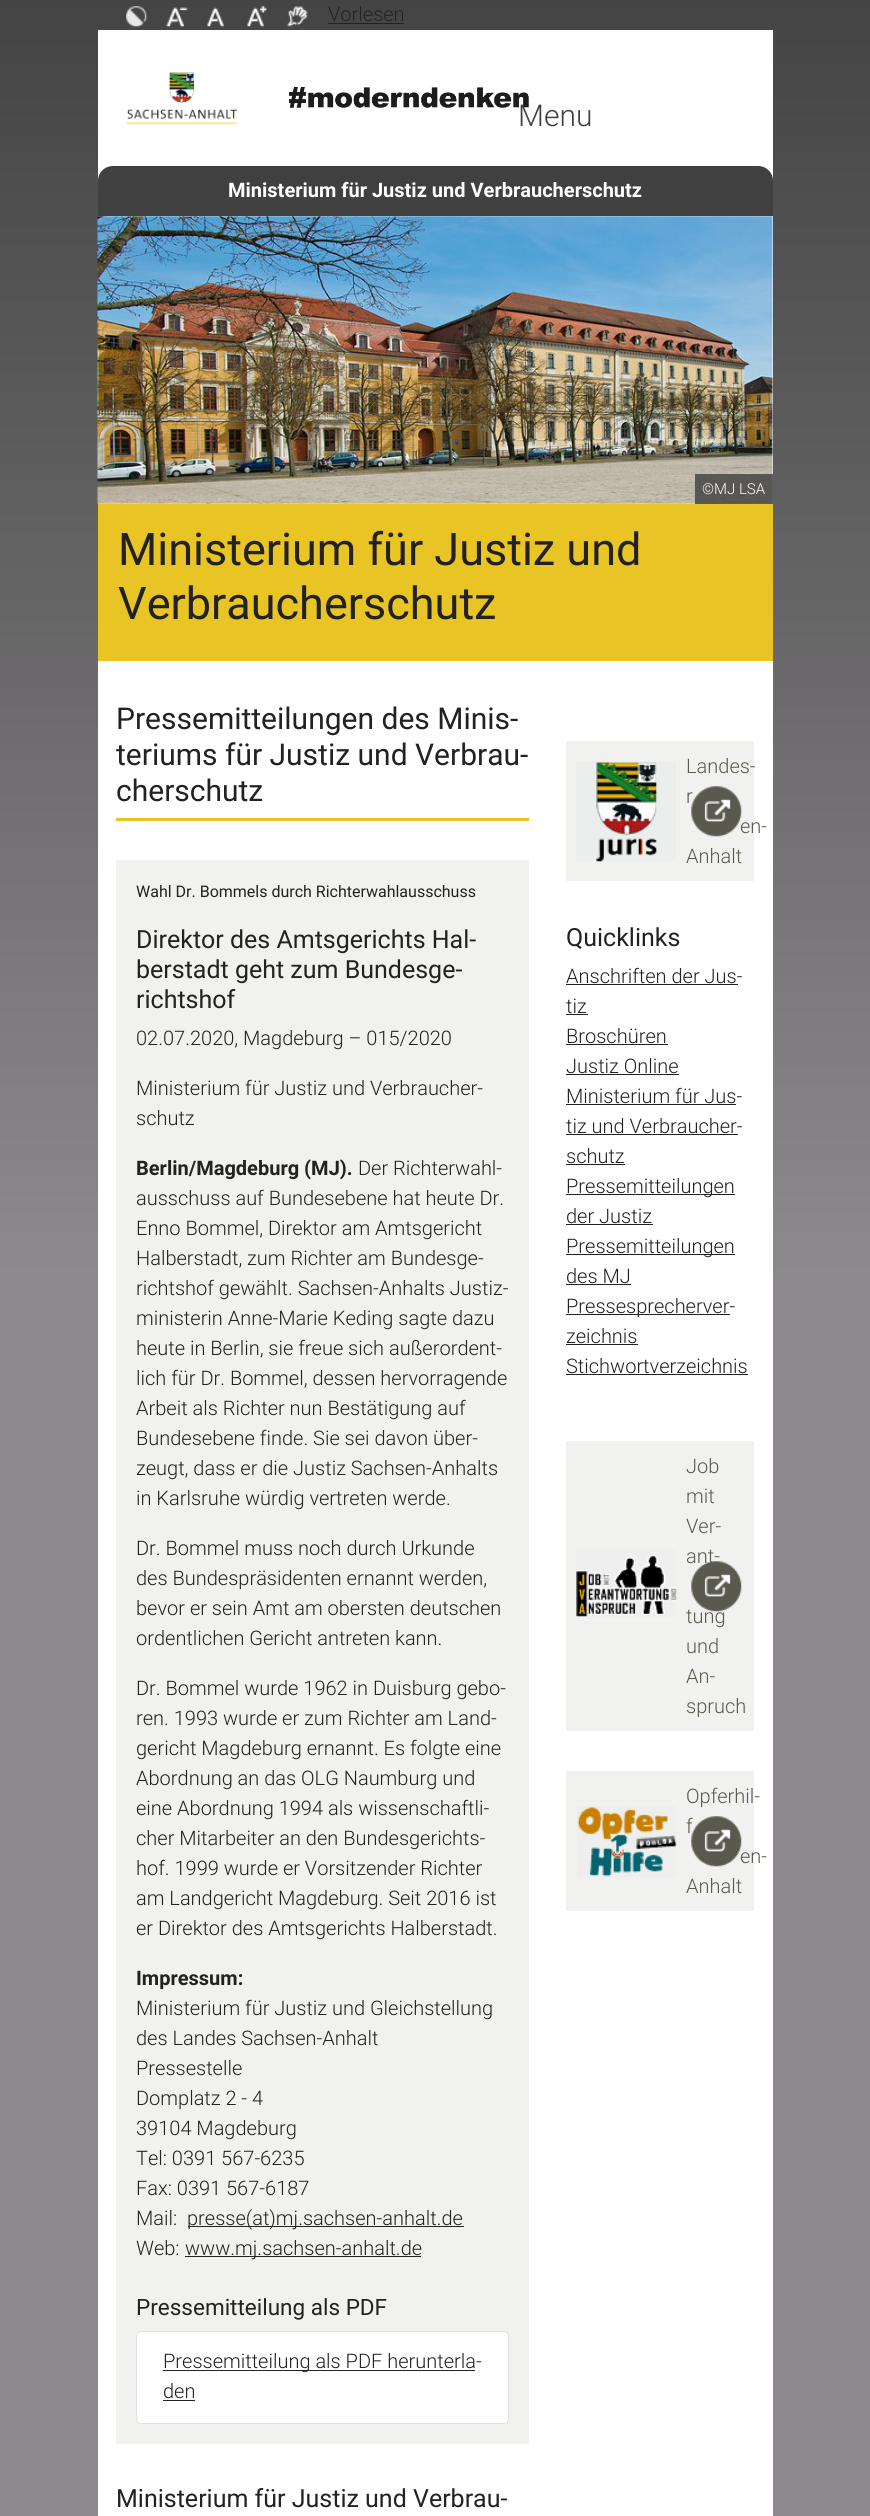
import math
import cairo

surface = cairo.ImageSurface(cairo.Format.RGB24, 870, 2516)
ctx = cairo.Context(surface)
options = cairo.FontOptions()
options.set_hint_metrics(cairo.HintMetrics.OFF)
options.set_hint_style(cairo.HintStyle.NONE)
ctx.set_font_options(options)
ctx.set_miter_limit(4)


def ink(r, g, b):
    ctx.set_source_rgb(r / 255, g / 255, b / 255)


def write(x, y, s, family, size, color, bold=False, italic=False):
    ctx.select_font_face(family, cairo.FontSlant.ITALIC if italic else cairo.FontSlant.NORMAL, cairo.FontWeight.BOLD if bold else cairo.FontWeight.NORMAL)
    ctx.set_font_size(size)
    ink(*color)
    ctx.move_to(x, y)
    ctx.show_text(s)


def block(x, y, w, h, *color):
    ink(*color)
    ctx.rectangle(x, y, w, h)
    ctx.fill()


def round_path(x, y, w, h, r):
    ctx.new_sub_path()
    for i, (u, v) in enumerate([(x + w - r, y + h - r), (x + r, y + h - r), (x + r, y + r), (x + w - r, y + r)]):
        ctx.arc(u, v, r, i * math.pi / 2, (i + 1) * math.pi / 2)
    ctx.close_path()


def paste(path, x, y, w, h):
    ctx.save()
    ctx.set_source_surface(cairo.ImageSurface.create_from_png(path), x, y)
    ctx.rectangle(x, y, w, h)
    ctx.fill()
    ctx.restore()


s1 = dict(family="Roboto Light", size=20, color=(34, 34, 34))
s2 = dict(family="Roboto Light", size=30, color=(64, 64, 64))
s3 = dict(family="Roboto", size=20, color=(255, 255, 255), bold=True)
s4 = dict(family="Roboto Light", size=15, color=(255, 255, 255))
s5 = dict(family="Roboto", size=45, color=(34, 34, 34))
s6 = dict(family="Roboto", size=30, color=(34, 34, 34))
s7 = dict(family="Roboto", size=16, color=(34, 34, 34))
s8 = dict(family="Roboto", size=25, color=(34, 34, 34))
s9 = dict(family="Roboto", size=20, color=(34, 34, 34), bold=True)
s10 = dict(family="Roboto", size=22.5, color=(34, 34, 34))
s11 = dict(family="Roboto Light", size=20, color=(89, 90, 77))

ink(255, 255, 255)
ctx.paint()
gradient = cairo.LinearGradient(435, 0, 435, 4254)
gradient.add_color_stop_rgba(0, 0.267, 0.267, 0.267, 1)
gradient.add_color_stop_rgba(0.3, 0.553, 0.541, 0.553, 1)
ctx.set_source(gradient)
ctx.rectangle(0, 0, 870, 2516)
ctx.fill()
paste("pic1.png", 126, 6, 21, 21)
paste("pic2.png", 166, 7, 22, 20)
paste("pic3.png", 207, 7, 17, 20)
paste("pic4.png", 247, 6, 21, 21)
paste("pic5.png", 287, 6, 21, 21)
write(328, 21, "Vorlesen", **s1)
block(328, 23, 76, 1, 34, 34, 34)
block(98, 30, 675, 474, 255, 255, 255)
paste("pic7.png", 287, 87, 242, 23)
write(518, 126, "Menu", **s2)
paste("pic6.png", 126, 72, 111, 53)
ctx.new_path()
ctx.move_to(113, 166)
ctx.line_to(758, 166)
ctx.curve_to(766.5, 166, 773, 172.5, 773, 181)
ctx.line_to(773, 216)
ctx.line_to(98, 216)
ctx.line_to(98, 181)
ctx.curve_to(98, 172.5, 104.5, 166, 113, 166)
ctx.close_path()
ctx.fill()
write(228, 197, "Ministerium für Justiz und Verbraucherschutz", **s3)
paste("pic8.png", 97, 216, 676, 288)
ctx.set_source_rgba(0.251, 0.251, 0.251, 0.8)
ctx.rectangle(695, 474, 78, 30)
ctx.fill()
write(702, 494, "©MJ LSA", **s4)
block(98, 504, 675, 157, 232, 196, 37)
write(118, 565, "Ministerium für Justiz und", **s5)
write(118, 619, "Verbraucherschutz", **s5)
block(98, 661, 675, 1855, 255, 255, 255)
block(116, 818, 413, 3, 232, 196, 37)
write(116, 729, "Pressemitteilungen des Minis-", **s6)
write(116, 765, "teriums für Justiz und Verbrau-", **s6)
write(116, 801, "cherschutz", **s6)
block(116, 860, 413, 1584, 241, 241, 240)
write(136, 897, "Wahl Dr. Bommels durch Richterwahlausschuss", **s7)
write(136, 948, "Direktor des Amtsgerichts Hal-", **s8)
write(136, 978, "berstadt geht zum Bundesge-", **s8)
write(136, 1008, "richtshof", **s8)
write(136, 1045, "02.07.2020, Magdeburg – 015/2020", **s1)
write(136, 1095, "Ministerium für Justiz und Verbraucher-", **s1)
write(136, 1125, "schutz", **s1)
write(136, 1175, "Berlin/Magdeburg (MJ).", **s9)
write(358, 1175, "Der Richterwahl-", **s1)
write(136, 1205, "ausschuss auf Bundesebene hat heute Dr.", **s1)
write(136, 1235, "Enno Bommel, Direktor am Amtsgericht", **s1)
write(136, 1265, "Halberstadt, zum Richter am Bundesge-", **s1)
write(136, 1295, "richtshof gewählt. Sachsen-Anhalts Justiz-", **s1)
write(136, 1325, "ministerin Anne-Marie Keding sagte dazu", **s1)
write(136, 1355, "heute in Berlin, sie freue sich außerordent-", **s1)
write(136, 1385, "lich für Dr. Bommel, dessen hervorragende", **s1)
write(136, 1415, "Arbeit als Richter nun Bestätigung auf", **s1)
write(136, 1445, "Bundesebene finde. Sie sei davon über-", **s1)
write(136, 1475, "zeugt, dass er die Justiz Sachsen-Anhalts", **s1)
write(136, 1505, "in Karlsruhe würdig vertreten werde.", **s1)
write(136, 1555, "Dr. Bommel muss noch durch Urkunde", **s1)
write(136, 1585, "des Bundespräsidenten ernannt werden,", **s1)
write(136, 1615, "bevor er sein Amt am obersten deutschen", **s1)
write(136, 1645, "ordentlichen Gericht antreten kann.", **s1)
write(136, 1695, "Dr. Bommel wurde 1962 in Duisburg gebo-", **s1)
write(136, 1725, "ren. 1993 wurde er zum Richter am Land-", **s1)
write(136, 1755, "gericht Magdeburg ernannt. Es folgte eine", **s1)
write(136, 1785, "Abordnung an das OLG Naumburg und", **s1)
write(136, 1815, "eine Abordnung 1994 als wissenschaftli-", **s1)
write(136, 1845, "cher Mitarbeiter an den Bundesgerichts-", **s1)
write(136, 1875, "hof. 1999 wurde er Vorsitzender Richter", **s1)
write(136, 1905, "am Landgericht Magdeburg. Seit 2016 ist", **s1)
write(136, 1935, "er Direktor des Amtsgerichts Halberstadt.", **s1)
write(136, 1985, "Impressum:", **s9)
write(136, 2015, "Ministerium für Justiz und Gleichstellung", **s1)
write(136, 2045, "des Landes Sachsen-Anhalt", **s1)
write(136, 2075, "Pressestelle", **s1)
write(136, 2105, "Domplatz 2 - 4", **s1)
write(136, 2135, "39104 Magdeburg", **s1)
write(136, 2165, "Tel: 0391 567-6235", **s1)
write(136, 2195, "Fax: 0391 567-6187", **s1)
write(136, 2225, "Mail:", **s1)
block(188, 2226, 276, 1, 34, 34, 34)
write(187, 2225, "presse(at)mj.sachsen-anhalt.de", **s1)
write(136, 2255, "Web:", **s1)
block(185, 2256, 236, 1, 34, 34, 34)
write(185, 2255, "www.mj.sachsen-anhalt.de", **s1)
write(136, 2315, "Pressemitteilung als PDF", **s10)
ink(255, 255, 255)
round_path(136, 2331, 373, 93, 5)
ctx.fill()
round_path(136.5, 2331.5, 372, 92, 4.5)
ctx.set_source_rgba(0, 0, 0, 0.12)
ctx.set_line_width(1)
ctx.stroke()
block(163, 2370, 312, 1, 34, 34, 34)
write(163, 2368, "Pressemitteilung als PDF herunterla-", **s1)
write(163, 2398, "den", **s1)
block(163, 2400, 32, 1, 34, 34, 34)
write(116, 2507, "Ministerium für Justiz und Verbrau-", **s8)
block(566, 741, 188, 140, 241, 241, 240)
paste("pic9.png", 691, 786, 51, 51)
paste("pic10.png", 576, 761, 100, 101)
write(686, 773, "Landes-", **s11)
write(686, 803, "r", **s11)
write(740, 833, "en-", **s11)
write(686, 863, "Anhalt", **s11)
write(566, 946, "Quicklinks", **s8)
write(566, 983, "Anschriften der Jus-", **s1)
block(566, 984, 172, 1, 34, 34, 34)
write(566, 1013, "tiz", **s1)
block(566, 1014, 22, 1, 34, 34, 34)
write(566, 1043, "Broschüren", **s1)
block(566, 1044, 102, 1, 34, 34, 34)
write(566, 1073, "Justiz Online", **s1)
block(566, 1074, 113, 1, 34, 34, 34)
write(566, 1103, "Ministerium für Jus-", **s1)
block(566, 1104, 170, 1, 34, 34, 34)
write(566, 1133, "tiz und Verbraucher-", **s1)
block(566, 1134, 172, 1, 34, 34, 34)
write(566, 1163, "schutz", **s1)
block(566, 1164, 59, 1, 34, 34, 34)
block(566, 1194, 169, 1, 34, 34, 34)
write(566, 1193, "Pressemitteilungen", **s1)
write(566, 1223, "der Justiz", **s1)
block(566, 1224, 87, 1, 34, 34, 34)
block(566, 1254, 169, 1, 34, 34, 34)
write(566, 1253, "Pressemitteilungen", **s1)
write(566, 1283, "des MJ", **s1)
block(566, 1284, 65, 1, 34, 34, 34)
block(566, 1314, 164, 1, 34, 34, 34)
write(566, 1313, "Pressesprecherver-", **s1)
write(566, 1343, "zeichnis", **s1)
block(566, 1344, 72, 1, 34, 34, 34)
write(566, 1373, "Stichwortverzeichnis", **s1)
block(566, 1374, 182, 1, 34, 34, 34)
block(566, 1441, 188, 290, 241, 241, 240)
paste("pic11.png", 691, 1561, 51, 51)
paste("pic12.png", 576, 1549, 101, 69)
write(686, 1473, "Job", **s11)
write(686, 1503, "mit", **s11)
write(686, 1533, "Ver-", **s11)
write(686, 1563, "ant-", **s11)
write(686, 1623, "tung", **s11)
write(686, 1653, "und", **s11)
write(686, 1683, "An-", **s11)
write(686, 1713, "spruch", **s11)
block(566, 1771, 188, 140, 241, 241, 240)
paste("pic9.png", 691, 1816, 51, 51)
paste("pic13.png", 577, 1806, 100, 71)
write(686, 1803, "Opferhil-", **s11)
write(686, 1833, "f", **s11)
write(740, 1863, "en-", **s11)
write(686, 1893, "Anhalt", **s11)
surface.write_to_png("screenshot.png")
